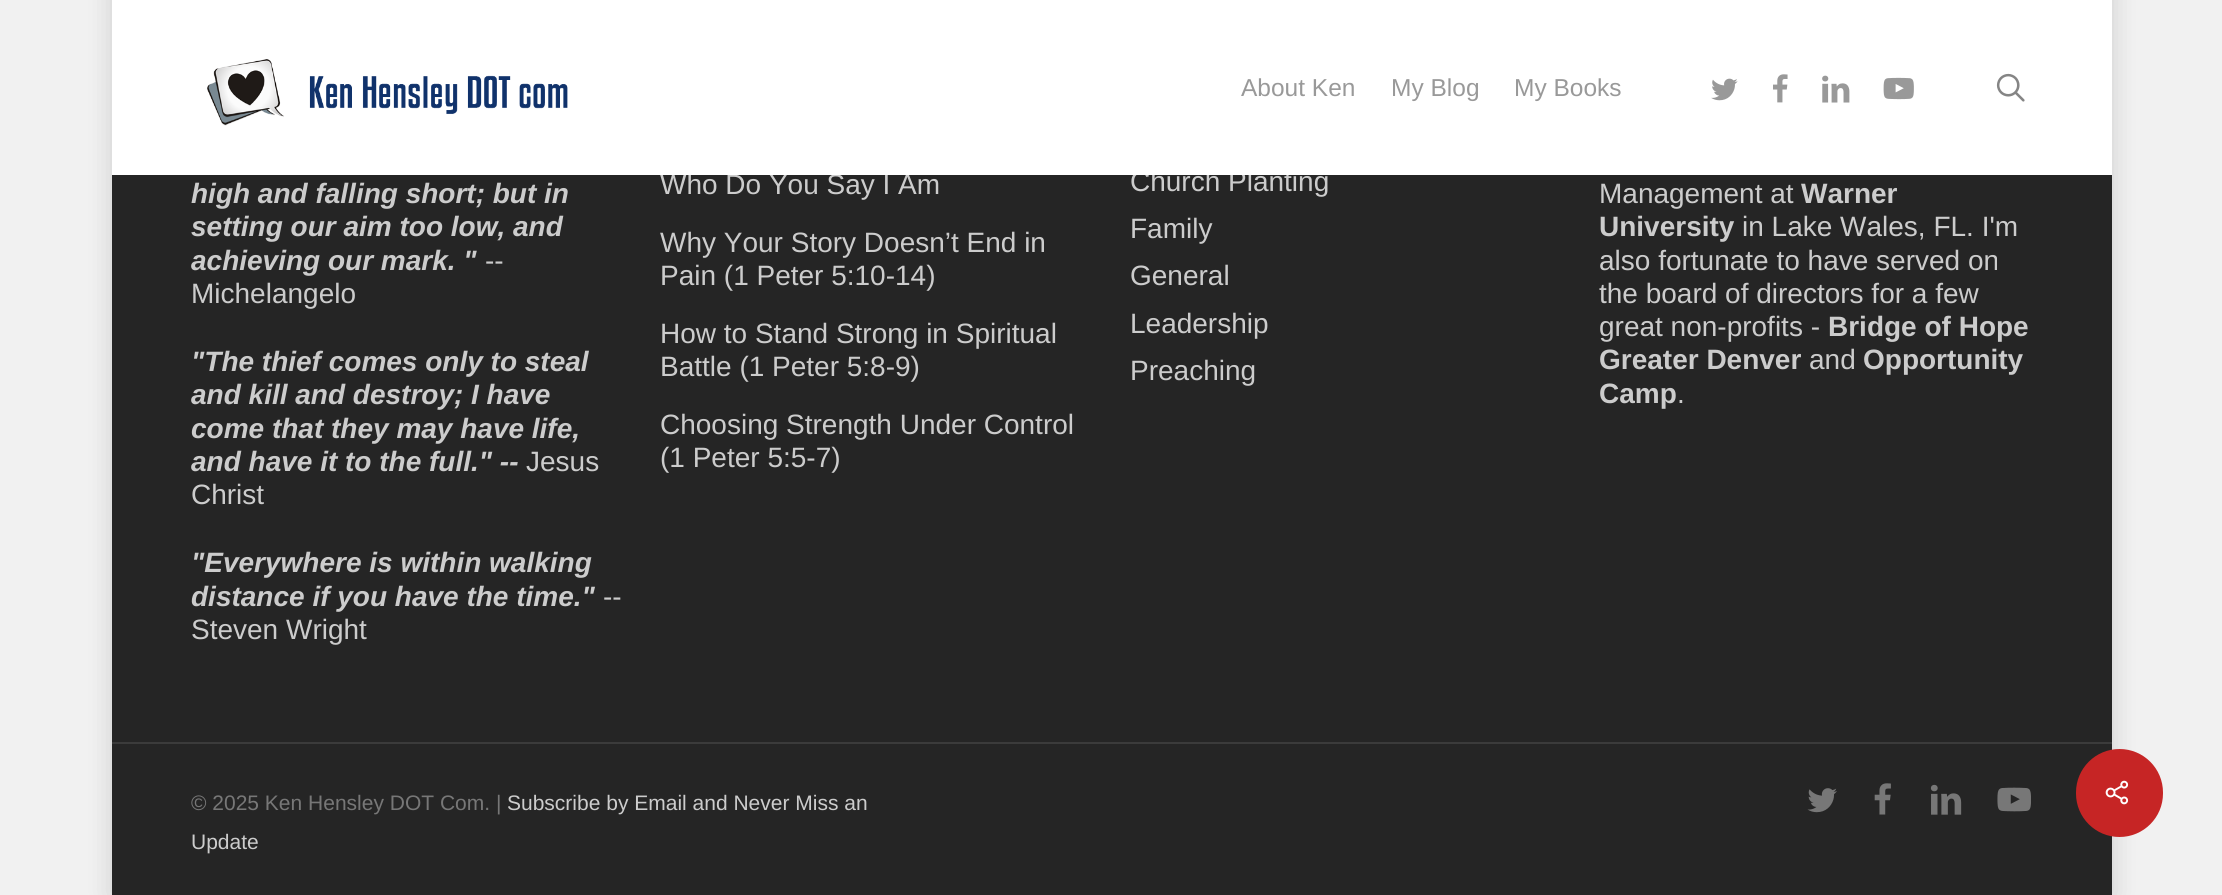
import math
import cairo

surface = cairo.ImageSurface(cairo.Format.RGB24, 2222, 895)
ctx = cairo.Context(surface)
options = cairo.FontOptions()
options.set_hint_metrics(cairo.HintMetrics.OFF)
options.set_hint_style(cairo.HintStyle.NONE)
ctx.set_font_options(options)
ctx.set_miter_limit(4)


def ink(r, g, b):
    ctx.set_source_rgb(r / 255, g / 255, b / 255)


def write(x, y, s, family, size, color, bold=False, italic=False):
    ctx.select_font_face(family, cairo.FontSlant.ITALIC if italic else cairo.FontSlant.NORMAL, cairo.FontWeight.BOLD if bold else cairo.FontWeight.NORMAL)
    ctx.set_font_size(size)
    ink(*color)
    ctx.move_to(x, y)
    ctx.show_text(s)


def block(x, y, w, h, *color):
    ink(*color)
    ctx.rectangle(x, y, w, h)
    ctx.fill()


def round_path(x, y, w, h, r):
    ctx.new_sub_path()
    for i, (u, v) in enumerate([(x + w - r, y + h - r), (x + r, y + h - r), (x + r, y + r), (x + w - r, y + r)]):
        ctx.arc(u, v, r, i * math.pi / 2, (i + 1) * math.pi / 2)
    ctx.close_path()


def blur_box(x, y, w, h, r, blur, alpha):
    ctx.push_group_with_content(cairo.Content.ALPHA)
    ctx.set_operator(cairo.Operator.SOURCE)
    for i in range(15, -16, -2):
        e = blur * i / 6
        if min(w, h) + 2 * e > 0:
            ctx.set_source_rgba(0, 0, 0, alpha * math.erfc((i - 1) / 8.5) / 2)
            round_path(x - e, y - e, w + 2 * e, h + 2 * e, max(0, min(r + e + blur * .6, min(w, h) / 2 + e)))
            ctx.fill()
    ctx.mask(ctx.pop_group())


def paste(path, x, y, w, h):
    ctx.save()
    ctx.set_source_surface(cairo.ImageSurface.create_from_png(path), x, y)
    ctx.rectangle(x, y, w, h)
    ctx.fill()
    ctx.restore()


s1 = dict(family="Liberation Sans", size=28, color=(204, 204, 204))
s2 = dict(family="Liberation Sans", size=24.5, color=(153, 153, 153))
s3 = dict(family="Liberation Sans", size=28, color=(204, 204, 204), bold=True, italic=True)
s4 = dict(family="Liberation Sans", size=28, color=(204, 204, 204), bold=True)
s5 = dict(family="Liberation Sans", size=21, color=(119, 119, 119))
s6 = dict(family="Liberation Sans", size=21, color=(204, 204, 204))

ink(241, 241, 241)
ctx.paint()
ink(0, 0, 0)
blur_box(112, -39, 2000, 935, 0, 13, 0.15)
block(112, 175, 2000, 720, 37, 37, 37)
write(660, 194, "Who Do You Say I Am", **s1)
write(1130, 191, "Church Planting", **s1)
block(112, 0, 2000, 175, 255, 255, 255)
paste("pic1.png", 207, 59, 361, 67)
write(1241, 96, "About Ken", **s2)
write(1391, 96, "My Blog", **s2)
write(1514, 96, "My Books", **s2)
paste("pic2.png", 1711, 78, 27, 23)
paste("pic3.png", 1773, 74, 15, 29)
paste("pic4.png", 1822, 75, 28, 28)
paste("pic5.png", 1883, 77, 31, 23)
paste("pic6.png", 1996, 73, 29, 29)
write(191, 203, "high and falling short; but in", **s3)
write(191, 236, "setting our aim too low, and", **s3)
write(191, 270, "achieving our mark. \"", **s3)
write(485, 270, "--", **s1)
write(191, 303, "Michelangelo", **s1)
write(191, 371, "\"The thief comes only to steal", **s3)
write(191, 404, "and kill and destroy; I have", **s3)
write(191, 438, "come that they may have life,", **s3)
write(191, 471, "and have it to the full.\" --", **s3)
write(526, 471, "Jesus", **s1)
write(191, 504, "Christ", **s1)
write(191, 572, "\"Everywhere is within walking", **s3)
write(191, 606, "distance if you have the time.\"", **s3)
write(603, 606, "--", **s1)
write(191, 639, "Steven Wright", **s1)
write(660, 252, "Why Your Story Doesn’t End in", **s1)
write(660, 285, "Pain (1 Peter 5:10-14)", **s1)
write(660, 343, "How to Stand Strong in Spiritual", **s1)
write(660, 376, "Battle (1 Peter 5:8-9)", **s1)
write(660, 434, "Choosing Strength Under Control", **s1)
write(660, 467, "(1 Peter 5:5-7)", **s1)
write(1130, 238, "Family", **s1)
write(1130, 285, "General", **s1)
write(1130, 333, "Leadership", **s1)
write(1130, 380, "Preaching", **s1)
write(1599, 203, "Management at", **s1)
write(1801, 203, "Warner", **s4)
write(1599, 236, "University", **s4)
write(1742, 236, "in Lake Wales, FL. I'm", **s1)
write(1599, 270, "also fortunate to have served on", **s1)
write(1599, 303, "the board of directors for a few", **s1)
write(1599, 336, "great non-profits -", **s1)
write(1828, 336, "Bridge of Hope", **s4)
write(1599, 369, "Greater Denver", **s4)
write(1809, 369, "and", **s1)
write(1863, 369, "Opportunity", **s4)
write(1599, 403, "Camp", **s4)
write(1677, 403, ".", **s1)
block(112, 742, 2000, 2, 59, 59, 59)
write(191, 810, "© 2025 Ken Hensley DOT Com. |", **s5)
write(507, 810, "Subscribe by Email and Never Miss an", **s6)
write(191, 849, "Update", **s6)
paste("pic7.png", 1807, 788, 30, 25)
paste("pic8.png", 1874, 783, 17, 32)
paste("pic9.png", 1930, 784, 32, 31)
paste("pic10.png", 1997, 787, 34, 25)
ink(198, 37, 37)
round_path(2076, 749, 87, 88, 43.5)
ctx.fill()
paste("pic11.png", 2105, 780, 24, 25)
surface.write_to_png("screenshot.png")
